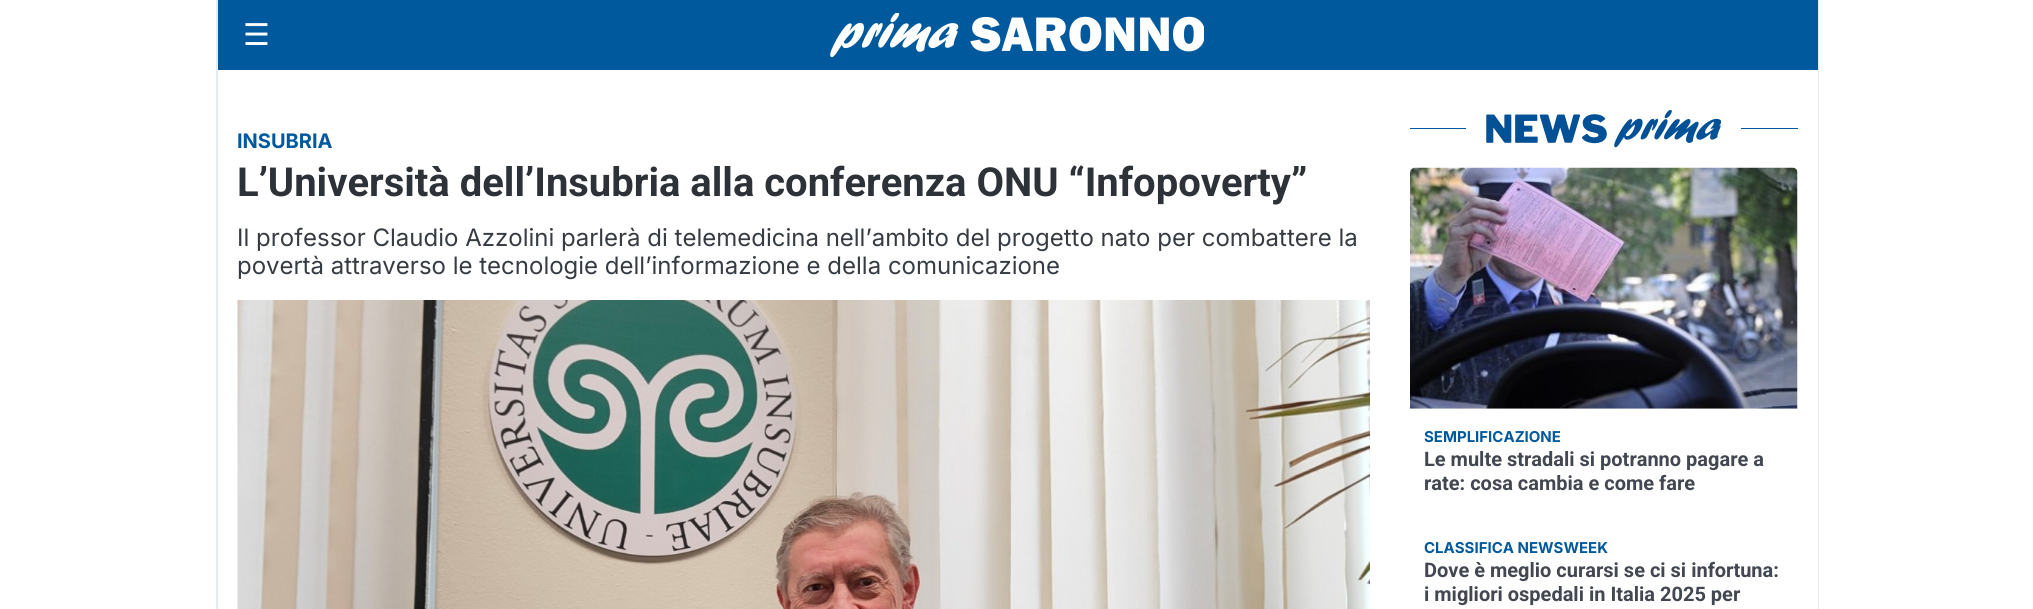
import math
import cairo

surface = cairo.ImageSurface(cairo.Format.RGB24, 2033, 609)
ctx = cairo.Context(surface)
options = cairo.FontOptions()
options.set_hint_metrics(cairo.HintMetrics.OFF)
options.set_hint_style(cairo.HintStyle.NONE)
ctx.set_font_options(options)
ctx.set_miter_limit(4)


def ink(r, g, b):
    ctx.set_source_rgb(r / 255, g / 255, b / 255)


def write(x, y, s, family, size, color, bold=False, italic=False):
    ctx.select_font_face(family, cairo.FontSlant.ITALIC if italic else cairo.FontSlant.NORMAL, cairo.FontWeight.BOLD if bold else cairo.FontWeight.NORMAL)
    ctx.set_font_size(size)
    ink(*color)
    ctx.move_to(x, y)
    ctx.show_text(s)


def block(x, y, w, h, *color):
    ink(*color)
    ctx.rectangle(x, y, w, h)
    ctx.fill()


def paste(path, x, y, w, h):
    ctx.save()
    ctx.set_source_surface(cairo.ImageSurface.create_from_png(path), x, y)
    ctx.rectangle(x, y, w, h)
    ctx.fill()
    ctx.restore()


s1 = dict(family="DejaVu Sans", size=30, color=(255, 255, 255))
s2 = dict(family="Inter", size=20, color=(0, 89, 156), bold=True)
s3 = dict(family="Roboto", size=40, color=(45, 49, 56), bold=True)
s4 = dict(family="Inter", size=24, color=(55, 60, 68))
s5 = dict(family="Inter", size=15, color=(0, 89, 156), bold=True)
s6 = dict(family="Roboto", size=20, color=(66, 71, 81), bold=True)

ink(255, 255, 255)
ctx.paint()
block(1818, 0, 1, 90, 231, 234, 240)
block(216, 0, 2, 90, 231, 234, 240)
block(218, 0, 1600, 70, 0, 89, 156)
write(243, 45, "☰", **s1)
paste("pic1.png", 830, 13, 374, 45)
ink(231, 234, 240)
ctx.new_path()
ctx.move_to(219, 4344)
ctx.line_to(1819, 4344)
ctx.line_to(1819, 90)
ctx.line_to(1818, 90)
ctx.line_to(1818, 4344)
ctx.close_path()
ctx.fill()
ctx.new_path()
ctx.move_to(216, 90)
ctx.line_to(216, 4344)
ctx.line_to(1816, 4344)
ctx.line_to(218, 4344)
ctx.line_to(218, 90)
ctx.close_path()
ctx.fill()
write(237, 148, "INSUBRIA", **s2)
write(237, 196, "L’Università dell’Insubria alla conferenza ONU “Infopoverty”", **s3)
write(237, 246, "Il professor Claudio Azzolini parlerà di telemedicina nell’ambito del progetto nato per combattere la", **s4)
write(237, 274, "povertà attraverso le tecnologie dell’informazione e della comunicazione", **s4)
paste("pic2.png", 237, 300, 1133, 309)
block(1410, 128, 388, 1, 0, 89, 156)
block(1466, 128, 275, 1, 255, 255, 255)
paste("pic3.png", 1486, 110, 235, 38)
paste("pic4.png", 1410, 167, 388, 242)
write(1424, 442, "SEMPLIFICAZIONE", **s5)
write(1424, 466, "Le multe stradali si potranno pagare a", **s6)
write(1424, 490, "rate: cosa cambia e come fare", **s6)
write(1424, 553, "CLASSIFICA NEWSWEEK", **s5)
write(1424, 577, "Dove è meglio curarsi se ci si infortuna:", **s6)
write(1424, 601, "i migliori ospedali in Italia 2025 per", **s6)
surface.write_to_png("screenshot.png")
